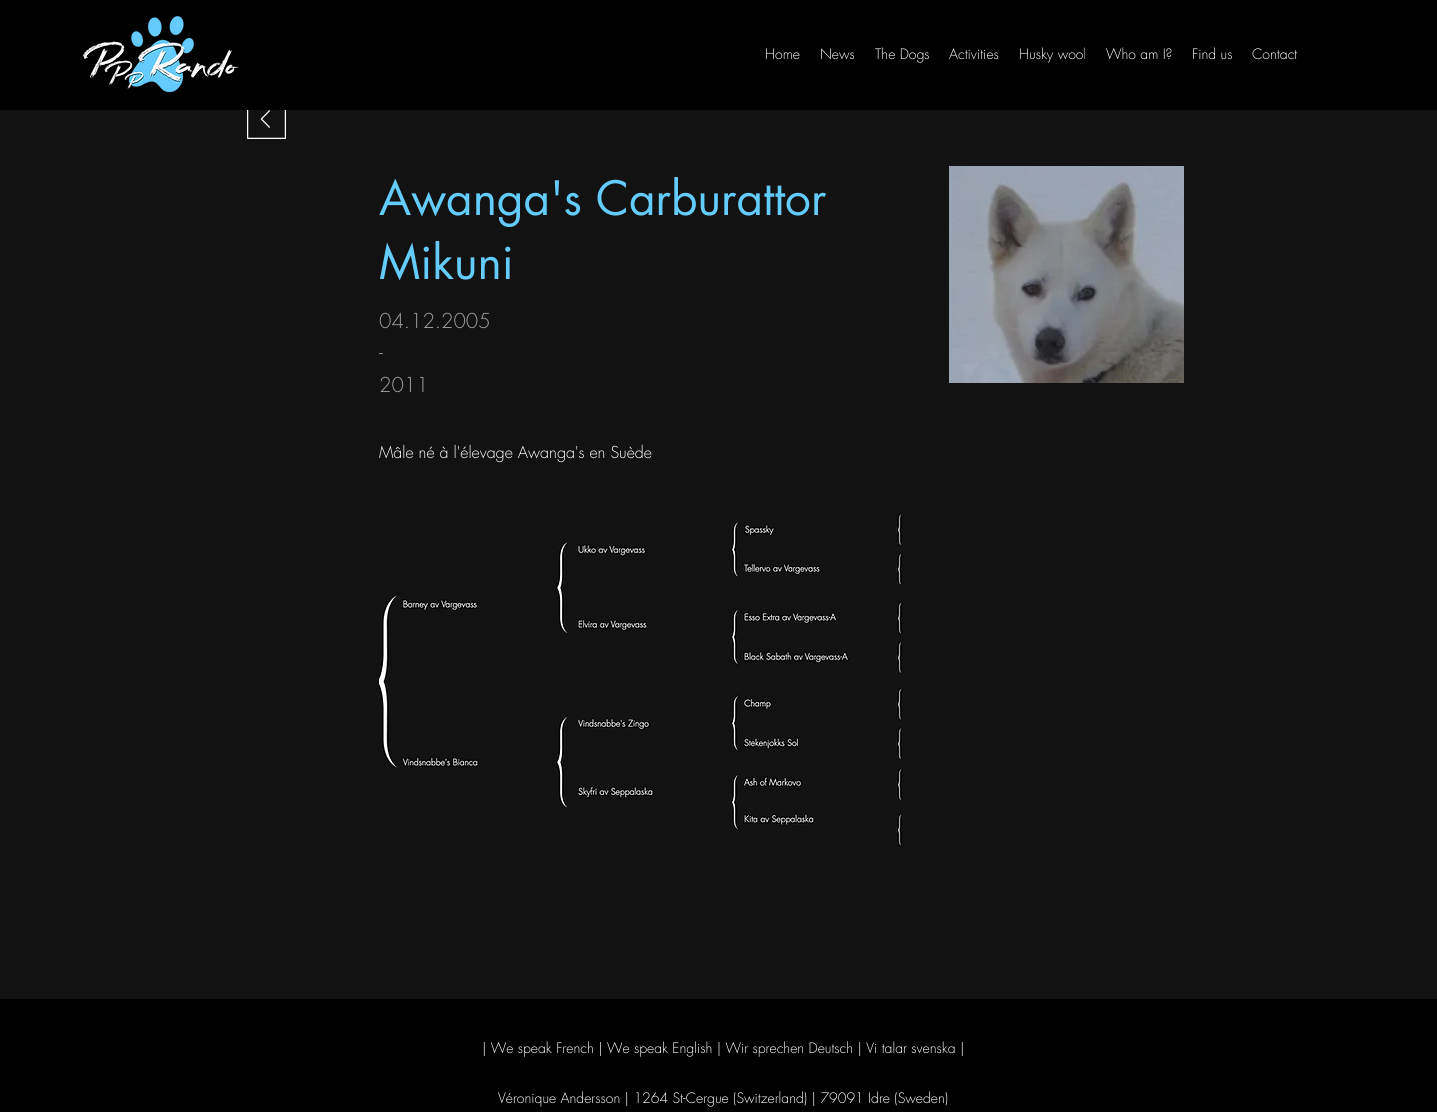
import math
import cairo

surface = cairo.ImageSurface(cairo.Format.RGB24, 1437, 1112)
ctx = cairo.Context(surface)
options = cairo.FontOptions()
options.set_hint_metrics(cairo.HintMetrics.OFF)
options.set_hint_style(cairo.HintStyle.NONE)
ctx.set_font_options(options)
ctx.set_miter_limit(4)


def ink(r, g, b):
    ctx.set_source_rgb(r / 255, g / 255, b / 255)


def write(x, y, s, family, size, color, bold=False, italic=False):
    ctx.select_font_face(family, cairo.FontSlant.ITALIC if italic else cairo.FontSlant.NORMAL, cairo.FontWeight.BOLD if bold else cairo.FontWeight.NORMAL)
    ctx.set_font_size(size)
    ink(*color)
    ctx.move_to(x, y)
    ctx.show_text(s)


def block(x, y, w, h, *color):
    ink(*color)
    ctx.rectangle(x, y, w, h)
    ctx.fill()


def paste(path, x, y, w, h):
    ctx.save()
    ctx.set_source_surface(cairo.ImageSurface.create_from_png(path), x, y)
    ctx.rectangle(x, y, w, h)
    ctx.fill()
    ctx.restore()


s1 = dict(family="futura Light", size=14, color=(255, 255, 255))
s2 = dict(family="futura", size=46, color=(100, 204, 252))
s3 = dict(family="futura Light", size=20, color=(160, 160, 160))
s4 = dict(family="futura Light", size=16, color=(255, 255, 255))

ink(18, 18, 18)
ctx.paint()
block(0, 0, 1437, 110, 0, 0, 0)
paste("pic1.png", 83, 16, 156, 77)
write(765, 59, "Home", **s1)
write(820, 59, "News", **s1)
write(875, 59, "The Dogs", **s1)
write(949, 59, "Activities", **s1)
write(1019, 59, "Husky wool", **s1)
write(1106, 59, "Who am I?", **s1)
write(1192, 59, "Find us", **s1)
write(1252, 59, "Contact", **s1)
paste("pic2.png", 247, 110, 39, 29)
write(379, 215, "Awanga's Carburattor", **s2)
write(379, 279, "Mikuni", **s2)
paste("pic3.png", 949, 166, 235, 217)
write(379, 328, "04.12.2005", **s3)
write(379, 360, "-", **s3)
write(379, 392, "2011", **s3)
write(379, 458, "Mâle né à l'élevage Awanga's en Suède", **s4)
paste("pic4.png", 379, 513, 524, 334)
block(0, 999, 1437, 113, 0, 0, 0)
write(482, 1053, "| We speak French | We speak English | Wir sprechen Deutsch | Vi talar svenska |", **s1)
write(498, 1103, "Véronique Andersson | 1264 St-Cergue (Switzerland) | 79091 Idre (Sweden)", **s1)
surface.write_to_png("screenshot.png")
